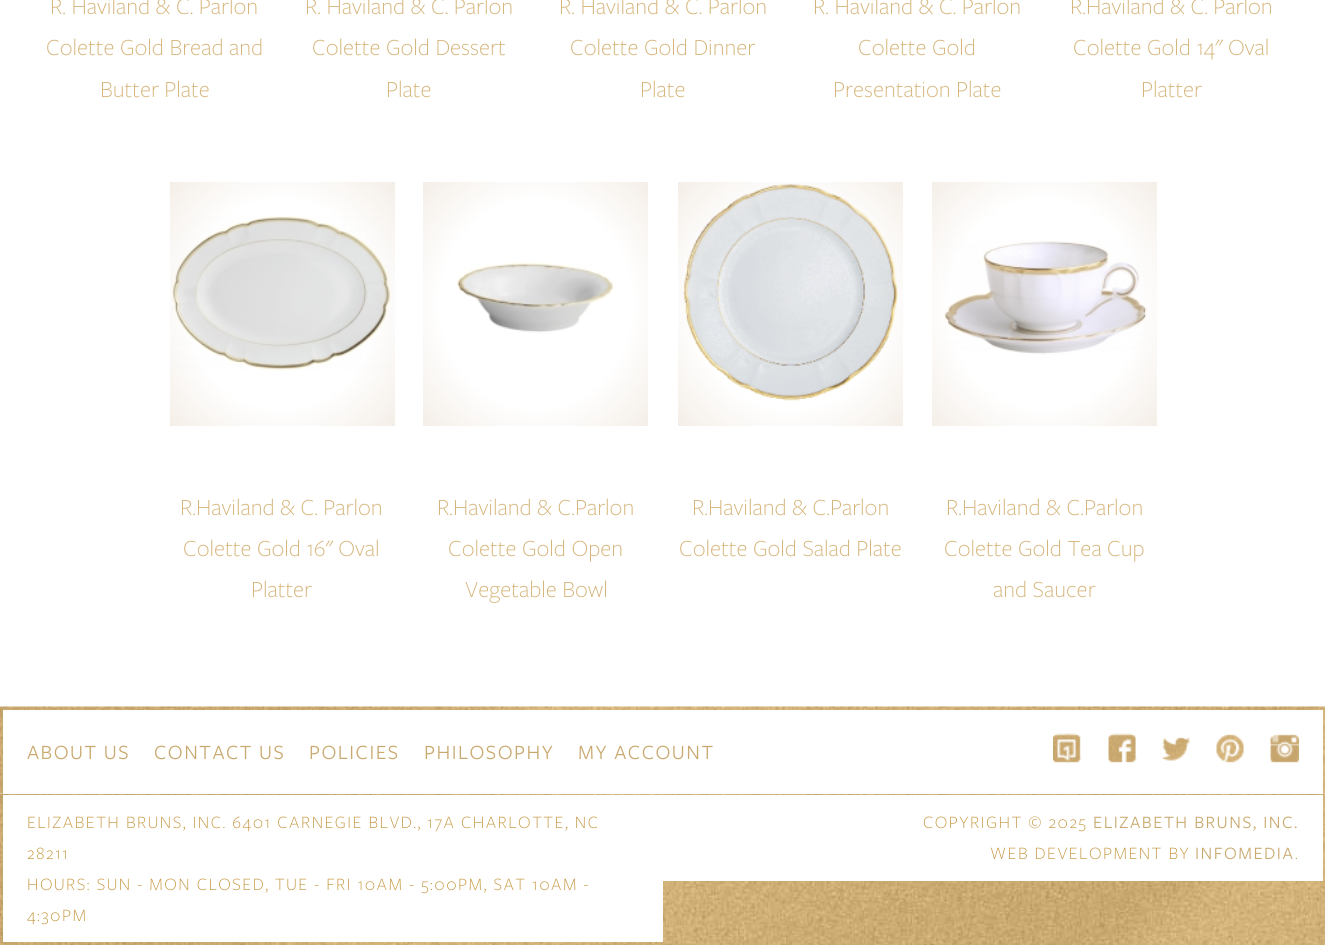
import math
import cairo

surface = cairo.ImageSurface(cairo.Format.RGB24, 1325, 950)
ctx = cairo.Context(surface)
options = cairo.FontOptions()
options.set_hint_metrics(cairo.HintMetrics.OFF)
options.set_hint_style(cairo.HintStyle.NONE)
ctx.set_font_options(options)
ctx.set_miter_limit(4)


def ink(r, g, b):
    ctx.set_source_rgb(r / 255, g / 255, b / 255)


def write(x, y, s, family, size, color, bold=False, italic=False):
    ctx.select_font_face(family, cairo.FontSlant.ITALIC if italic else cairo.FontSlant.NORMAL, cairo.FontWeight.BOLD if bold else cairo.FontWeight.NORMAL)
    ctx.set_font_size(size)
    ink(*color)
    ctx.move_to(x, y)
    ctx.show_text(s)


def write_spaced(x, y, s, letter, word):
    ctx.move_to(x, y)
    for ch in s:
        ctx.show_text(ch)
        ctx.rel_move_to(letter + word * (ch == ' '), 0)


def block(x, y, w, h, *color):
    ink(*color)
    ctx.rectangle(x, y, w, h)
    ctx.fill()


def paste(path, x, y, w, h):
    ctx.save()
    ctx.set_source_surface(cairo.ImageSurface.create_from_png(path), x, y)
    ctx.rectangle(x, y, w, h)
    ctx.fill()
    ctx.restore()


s1 = dict(family="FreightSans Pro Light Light", size=24, color=(213, 180, 121))

ink(255, 255, 255)
ctx.paint()
write(50, 14, "R. Haviland & C. Parlon", **s1)
write(46, 55, "Colette Gold Bread and", **s1)
write(100, 97, "Butter Plate", **s1)
write(305, 14, "R. Haviland & C. Parlon", **s1)
write(312, 55, "Colette Gold Dessert", **s1)
write(386, 97, "Plate", **s1)
write(559, 14, "R. Haviland & C. Parlon", **s1)
write(570, 55, "Colette Gold Dinner", **s1)
write(640, 97, "Plate", **s1)
write(813, 14, "R. Haviland & C. Parlon", **s1)
write(858, 55, "Colette Gold", **s1)
write(833, 97, "Presentation Plate", **s1)
write(1070, 14, "R.Haviland & C. Parlon", **s1)
write(1073, 55, "Colette Gold 14\" Oval", **s1)
write(1141, 97, "Platter", **s1)
paste("pic1.png", 171, 216, 221, 155)
gradient = cairo.RadialGradient(0, 0, 0, 0, 0, 1)
gradient.set_matrix(cairo.Matrix(1 / 159, 0, 0, 1 / 173, -1 * 282 / 159, -1 * 304 / 173))
gradient.add_color_stop_rgba(0.6, 0.957, 0.933, 0.906, 0)
gradient.add_color_stop_rgba(1, 0.957, 0.933, 0.906, 1)
ctx.set_source(gradient)
ctx.rectangle(170, 182, 225, 244)
ctx.fill()
write(180, 515, "R.Haviland & C. Parlon", **s1)
write(183, 556, "Colette Gold 16\" Oval", **s1)
write(251, 597, "Platter", **s1)
paste("pic2.png", 457, 262, 157, 71)
gradient = cairo.RadialGradient(0, 0, 0, 0, 0, 1)
gradient.set_matrix(cairo.Matrix(1 / 159, 0, 0, 1 / 173, -1 * 536 / 159, -1 * 304 / 173))
gradient.add_color_stop_rgba(0.6, 0.957, 0.933, 0.906, 0)
gradient.add_color_stop_rgba(1, 0.957, 0.933, 0.906, 1)
ctx.set_source(gradient)
ctx.rectangle(423, 182, 225, 244)
ctx.fill()
write(437, 515, "R.Haviland & C.Parlon", **s1)
write(448, 556, "Colette Gold Open", **s1)
write(465, 597, "Vegetable Bowl", **s1)
paste("pic3.png", 683, 183, 215, 218)
gradient = cairo.RadialGradient(0, 0, 0, 0, 0, 1)
gradient.set_matrix(cairo.Matrix(1 / 159, 0, 0, 1 / 173, -1 * 791 / 159, -1 * 304 / 173))
gradient.add_color_stop_rgba(0.6, 0.957, 0.933, 0.906, 0)
gradient.add_color_stop_rgba(1, 0.957, 0.933, 0.906, 1)
ctx.set_source(gradient)
ctx.rectangle(678, 182, 225, 244)
ctx.fill()
write(692, 515, "R.Haviland & C.Parlon", **s1)
write(679, 556, "Colette Gold Salad Plate", **s1)
paste("pic4.png", 943, 241, 205, 114)
gradient = cairo.RadialGradient(0, 0, 0, 0, 0, 1)
gradient.set_matrix(cairo.Matrix(1 / 159, 0, 0, 1 / 173, -1 * 1044 / 159, -1 * 304 / 173))
gradient.add_color_stop_rgba(0.6, 0.957, 0.933, 0.906, 0)
gradient.add_color_stop_rgba(1, 0.957, 0.933, 0.906, 1)
ctx.set_source(gradient)
ctx.rectangle(932, 182, 225, 244)
ctx.fill()
write(946, 515, "R.Haviland & C.Parlon", **s1)
write(944, 556, "Colette Gold Tea Cup", **s1)
write(993, 597, "and Saucer", **s1)
paste("pic11.png", 0, 793, 1325, 152)
paste("pic5.png", 0, 706, 1325, 88)
block(3, 710, 1320, 84, 255, 255, 255)
ctx.select_font_face("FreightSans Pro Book")
ctx.set_font_size(21)
ink(201, 169, 111)
write_spaced(27, 759, "ABOUT US", 1.5, 0)
write_spaced(154, 759, "CONTACT US", 1.5, 0)
write_spaced(309, 759, "POLICIES", 1.5, 0)
write_spaced(424, 759, "PHILOSOPHY", 1.5, 0)
write_spaced(578, 759, "MY ACCOUNT", 1.5, 0)
paste("pic6.png", 1053, 733, 29, 31)
paste("pic7.png", 1108, 733, 29, 30)
paste("pic8.png", 1162, 737, 28, 24)
paste("pic9.png", 1216, 733, 28, 30)
paste("pic10.png", 1270, 734, 29, 29)
block(3, 795, 660, 147, 255, 255, 255)
ctx.select_font_face("FreightSans Pro Light Light")
ctx.set_font_size(18)
ink(197, 151, 65)
write_spaced(27, 828, "ELIZABETH BRUNS, INC. 6401 CARNEGIE BLVD., 17A CHARLOTTE, NC", 1.5, 0)
write_spaced(27, 859, "28211", 1.5, 0)
write_spaced(27, 890, "HOURS: SUN - MON CLOSED, TUE - FRI 10AM - 5:00PM, SAT 10AM -", 1.5, 0)
write_spaced(27, 921, "4:30PM", 1.5, 0)
block(663, 795, 660, 86, 255, 255, 255)
ink(197, 151, 65)
write_spaced(923, 828, "COPYRIGHT © 2025", 1.5, 0)
ctx.select_font_face("FreightSans Pro Book")
ink(201, 169, 111)
write_spaced(1093, 828, "ELIZABETH BRUNS, INC.", 1.5, 0)
ctx.select_font_face("FreightSans Pro Light Light")
ink(197, 151, 65)
write_spaced(990, 859, "WEB DEVELOPMENT BY", 1.5, 0)
ctx.select_font_face("FreightSans Pro Book")
ink(201, 169, 111)
write_spaced(1195, 859, "INFOMEDIA", 1.5, 0)
ctx.select_font_face("FreightSans Pro Light Light")
ink(197, 151, 65)
write_spaced(1295, 859, ".", 1.5, 0)
surface.write_to_png("screenshot.png")
